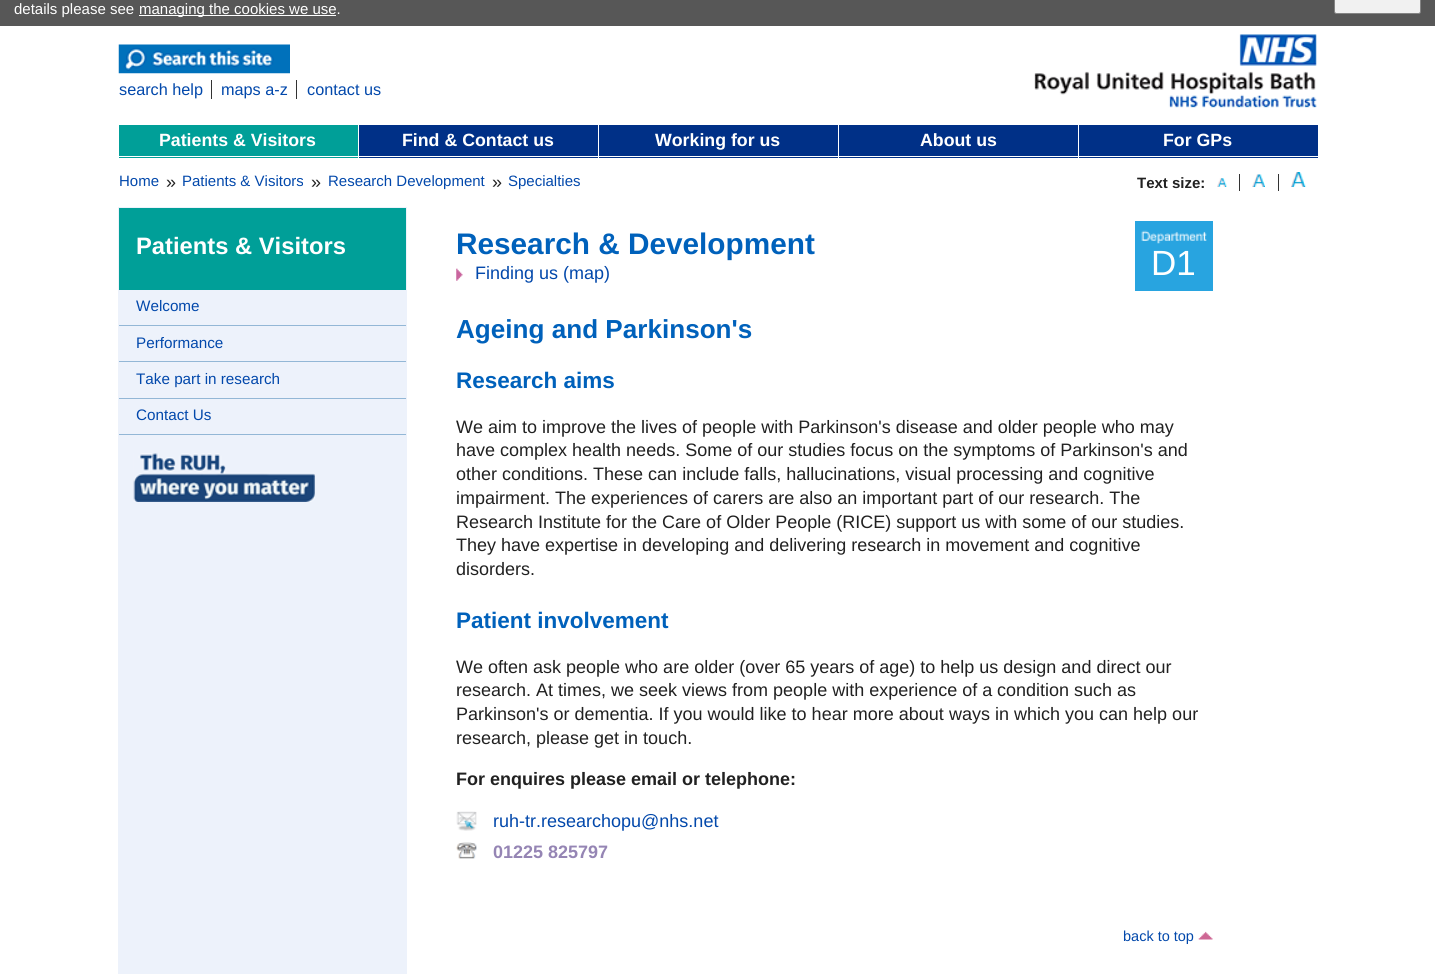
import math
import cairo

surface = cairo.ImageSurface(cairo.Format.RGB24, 1435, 974)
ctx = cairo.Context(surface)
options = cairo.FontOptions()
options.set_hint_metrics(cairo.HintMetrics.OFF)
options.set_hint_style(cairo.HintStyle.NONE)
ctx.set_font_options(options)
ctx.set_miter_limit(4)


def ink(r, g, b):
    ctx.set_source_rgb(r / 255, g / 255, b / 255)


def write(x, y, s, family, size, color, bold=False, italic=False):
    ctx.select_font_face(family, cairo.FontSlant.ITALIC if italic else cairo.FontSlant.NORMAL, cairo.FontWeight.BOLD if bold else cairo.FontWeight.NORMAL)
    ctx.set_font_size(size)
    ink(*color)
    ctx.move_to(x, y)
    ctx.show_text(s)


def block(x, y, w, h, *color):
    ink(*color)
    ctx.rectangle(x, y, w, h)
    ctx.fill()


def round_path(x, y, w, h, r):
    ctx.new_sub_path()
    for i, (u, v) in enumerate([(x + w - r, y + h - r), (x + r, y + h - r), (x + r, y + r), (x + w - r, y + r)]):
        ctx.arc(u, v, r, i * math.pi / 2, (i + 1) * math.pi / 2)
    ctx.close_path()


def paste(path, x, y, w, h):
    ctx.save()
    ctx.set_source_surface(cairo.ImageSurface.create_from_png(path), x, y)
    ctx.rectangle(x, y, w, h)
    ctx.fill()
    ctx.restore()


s1 = dict(family="Liberation Sans", size=15, color=(255, 255, 255))
s2 = dict(family="Liberation Sans", size=16.25, color=(2, 72, 171))
s3 = dict(family="Liberation Sans", size=17.75, color=(255, 255, 255), bold=True)
s4 = dict(family="Liberation Sans", size=15, color=(2, 72, 171))
s5 = dict(family="Liberation Sans", size=18, color=(33, 33, 33))
s6 = dict(family="Liberation Sans", size=15, color=(33, 33, 33), bold=True)
s7 = dict(family="Liberation Sans", size=23.75, color=(255, 255, 255), bold=True)
s8 = dict(family="Liberation Sans", size=29.75, color=(0, 97, 187), bold=True)
s9 = dict(family="Liberation Sans", size=18, color=(2, 72, 171))
s10 = dict(family="Liberation Sans", size=35, color=(255, 255, 255))
s11 = dict(family="Liberation Sans", size=26.1, color=(0, 97, 187), bold=True)
s12 = dict(family="Liberation Sans", size=22.5, color=(0, 97, 187), bold=True)
s13 = dict(family="Liberation Sans", size=18, color=(33, 33, 33), bold=True)
s14 = dict(family="Liberation Sans", size=18, color=(149, 133, 180), bold=True)
s15 = dict(family="Liberation Sans", size=14.5, color=(2, 72, 171))
s16 = dict(family="Liberation Sans", size=15.25, color=(2, 72, 171))

ink(255, 255, 255)
ctx.paint()
block(0, 0, 1435, 26, 87, 87, 87)
write(14, 14, "details please see", **s1)
block(139, 15, 197, 1, 255, 255, 255)
write(139, 14, "managing the cookies we use.", **s1)
ink(241, 241, 241)
round_path(1334.5, -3.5, 86, 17, 2)
ctx.fill_preserve()
ink(132, 132, 132)
ctx.set_line_width(1)
ctx.stroke()
paste("pic1.png", 118, 44, 172, 30)
write(119, 95, "search help", **s2)
block(211, 80, 1, 19, 51, 51, 51)
write(221, 95, "maps a-z", **s2)
block(296, 80, 1, 19, 51, 51, 51)
write(307, 95, "contact us", **s2)
paste("pic2.png", 1034, 34, 283, 74)
block(119, 125, 239, 33, 0, 159, 152)
block(118, 156, 240, 1, 255, 255, 255)
write(159, 146, "Patients & Visitors", **s3)
block(359, 125, 239, 33, 0, 48, 135)
block(358, 156, 240, 1, 255, 255, 255)
write(402, 146, "Find & Contact us", **s3)
block(599, 125, 239, 33, 0, 48, 135)
block(598, 156, 240, 1, 255, 255, 255)
write(655, 146, "Working for us", **s3)
block(839, 125, 239, 33, 0, 48, 135)
block(838, 156, 240, 1, 255, 255, 255)
write(920, 146, "About us", **s3)
block(1079, 125, 239, 33, 0, 48, 135)
block(1078, 156, 240, 1, 255, 255, 255)
write(1163, 146, "For GPs", **s3)
write(119, 186, "Home", **s4)
write(166, 188, "»", **s5)
write(182, 186, "Patients & Visitors", **s4)
write(311, 188, "»", **s5)
write(328, 186, "Research Development", **s4)
write(492, 188, "»", **s5)
write(508, 186, "Specialties", **s4)
write(1137, 188, "Text size:", **s6)
paste("pic3.png", 1217, 178, 10, 9)
block(1239, 174, 1, 17, 51, 51, 51)
paste("pic4.png", 1252, 174, 13, 13)
block(1278, 174, 1, 17, 51, 51, 51)
paste("pic5.png", 1291, 172, 16, 15)
block(118, 207, 289, 767, 237, 242, 251)
block(119, 208, 287, 82, 0, 159, 152)
write(136, 254, "Patients & Visitors", **s7)
write(456, 254, "Research & Development", **s8)
paste("pic6.png", 456, 268, 7, 13)
write(475, 279, "Finding us (map)", **s9)
block(1135, 221, 78, 70, 40, 164, 224)
paste("pic7.png", 1141, 230, 66, 14)
write(1151, 275, "D1", **s10)
write(456, 338, "Ageing and Parkinson's", **s11)
write(456, 388, "Research aims", **s12)
write(456, 433, "We aim to improve the lives of people with Parkinson's disease and older people who may", **s5)
write(456, 456, "have complex health needs. Some of our studies focus on the symptoms of Parkinson's and", **s5)
write(456, 480, "other conditions. These can include falls, hallucinations, visual processing and cognitive", **s5)
write(456, 504, "impairment. The experiences of carers are also an important part of our research. The", **s5)
write(456, 528, "Research Institute for the Care of Older People (RICE) support us with some of our studies.", **s5)
write(456, 551, "They have expertise in developing and delivering research in movement and cognitive", **s5)
write(456, 575, "disorders.", **s5)
write(456, 628, "Patient involvement", **s12)
write(456, 673, "We often ask people who are older (over 65 years of age) to help us design and direct our", **s5)
write(456, 696, "research. At times, we seek views from people with experience of a", **s5)
write(997, 696, "condition such as", **s5)
write(456, 720, "Parkinson's or dementia. If you would like to hear more about", **s5)
write(949, 720, "ways in which you can help our", **s5)
write(456, 744, "research, please get in touch.", **s5)
write(456, 785, "For enquires please email or telephone:", **s13)
paste("pic8.png", 456, 811, 21, 20)
write(493, 827, "ruh-tr.researchopu@nhs.net", **s9)
paste("pic9.png", 456, 842, 21, 17)
write(493, 858, "01225 825797", **s14)
paste("pic10.png", 1198, 931, 15, 9)
write(1123, 941, "back to top", **s15)
block(119, 325, 287, 1, 147, 183, 214)
write(136, 311, "Welcome", **s16)
block(119, 361, 287, 1, 147, 183, 214)
write(136, 348, "Performance", **s16)
block(119, 398, 287, 1, 147, 183, 214)
write(136, 384, "Take part in research", **s16)
block(119, 434, 287, 1, 147, 183, 214)
write(136, 420, "Contact Us", **s16)
paste("pic11.png", 133, 453, 182, 49)
surface.write_to_png("screenshot.png")
